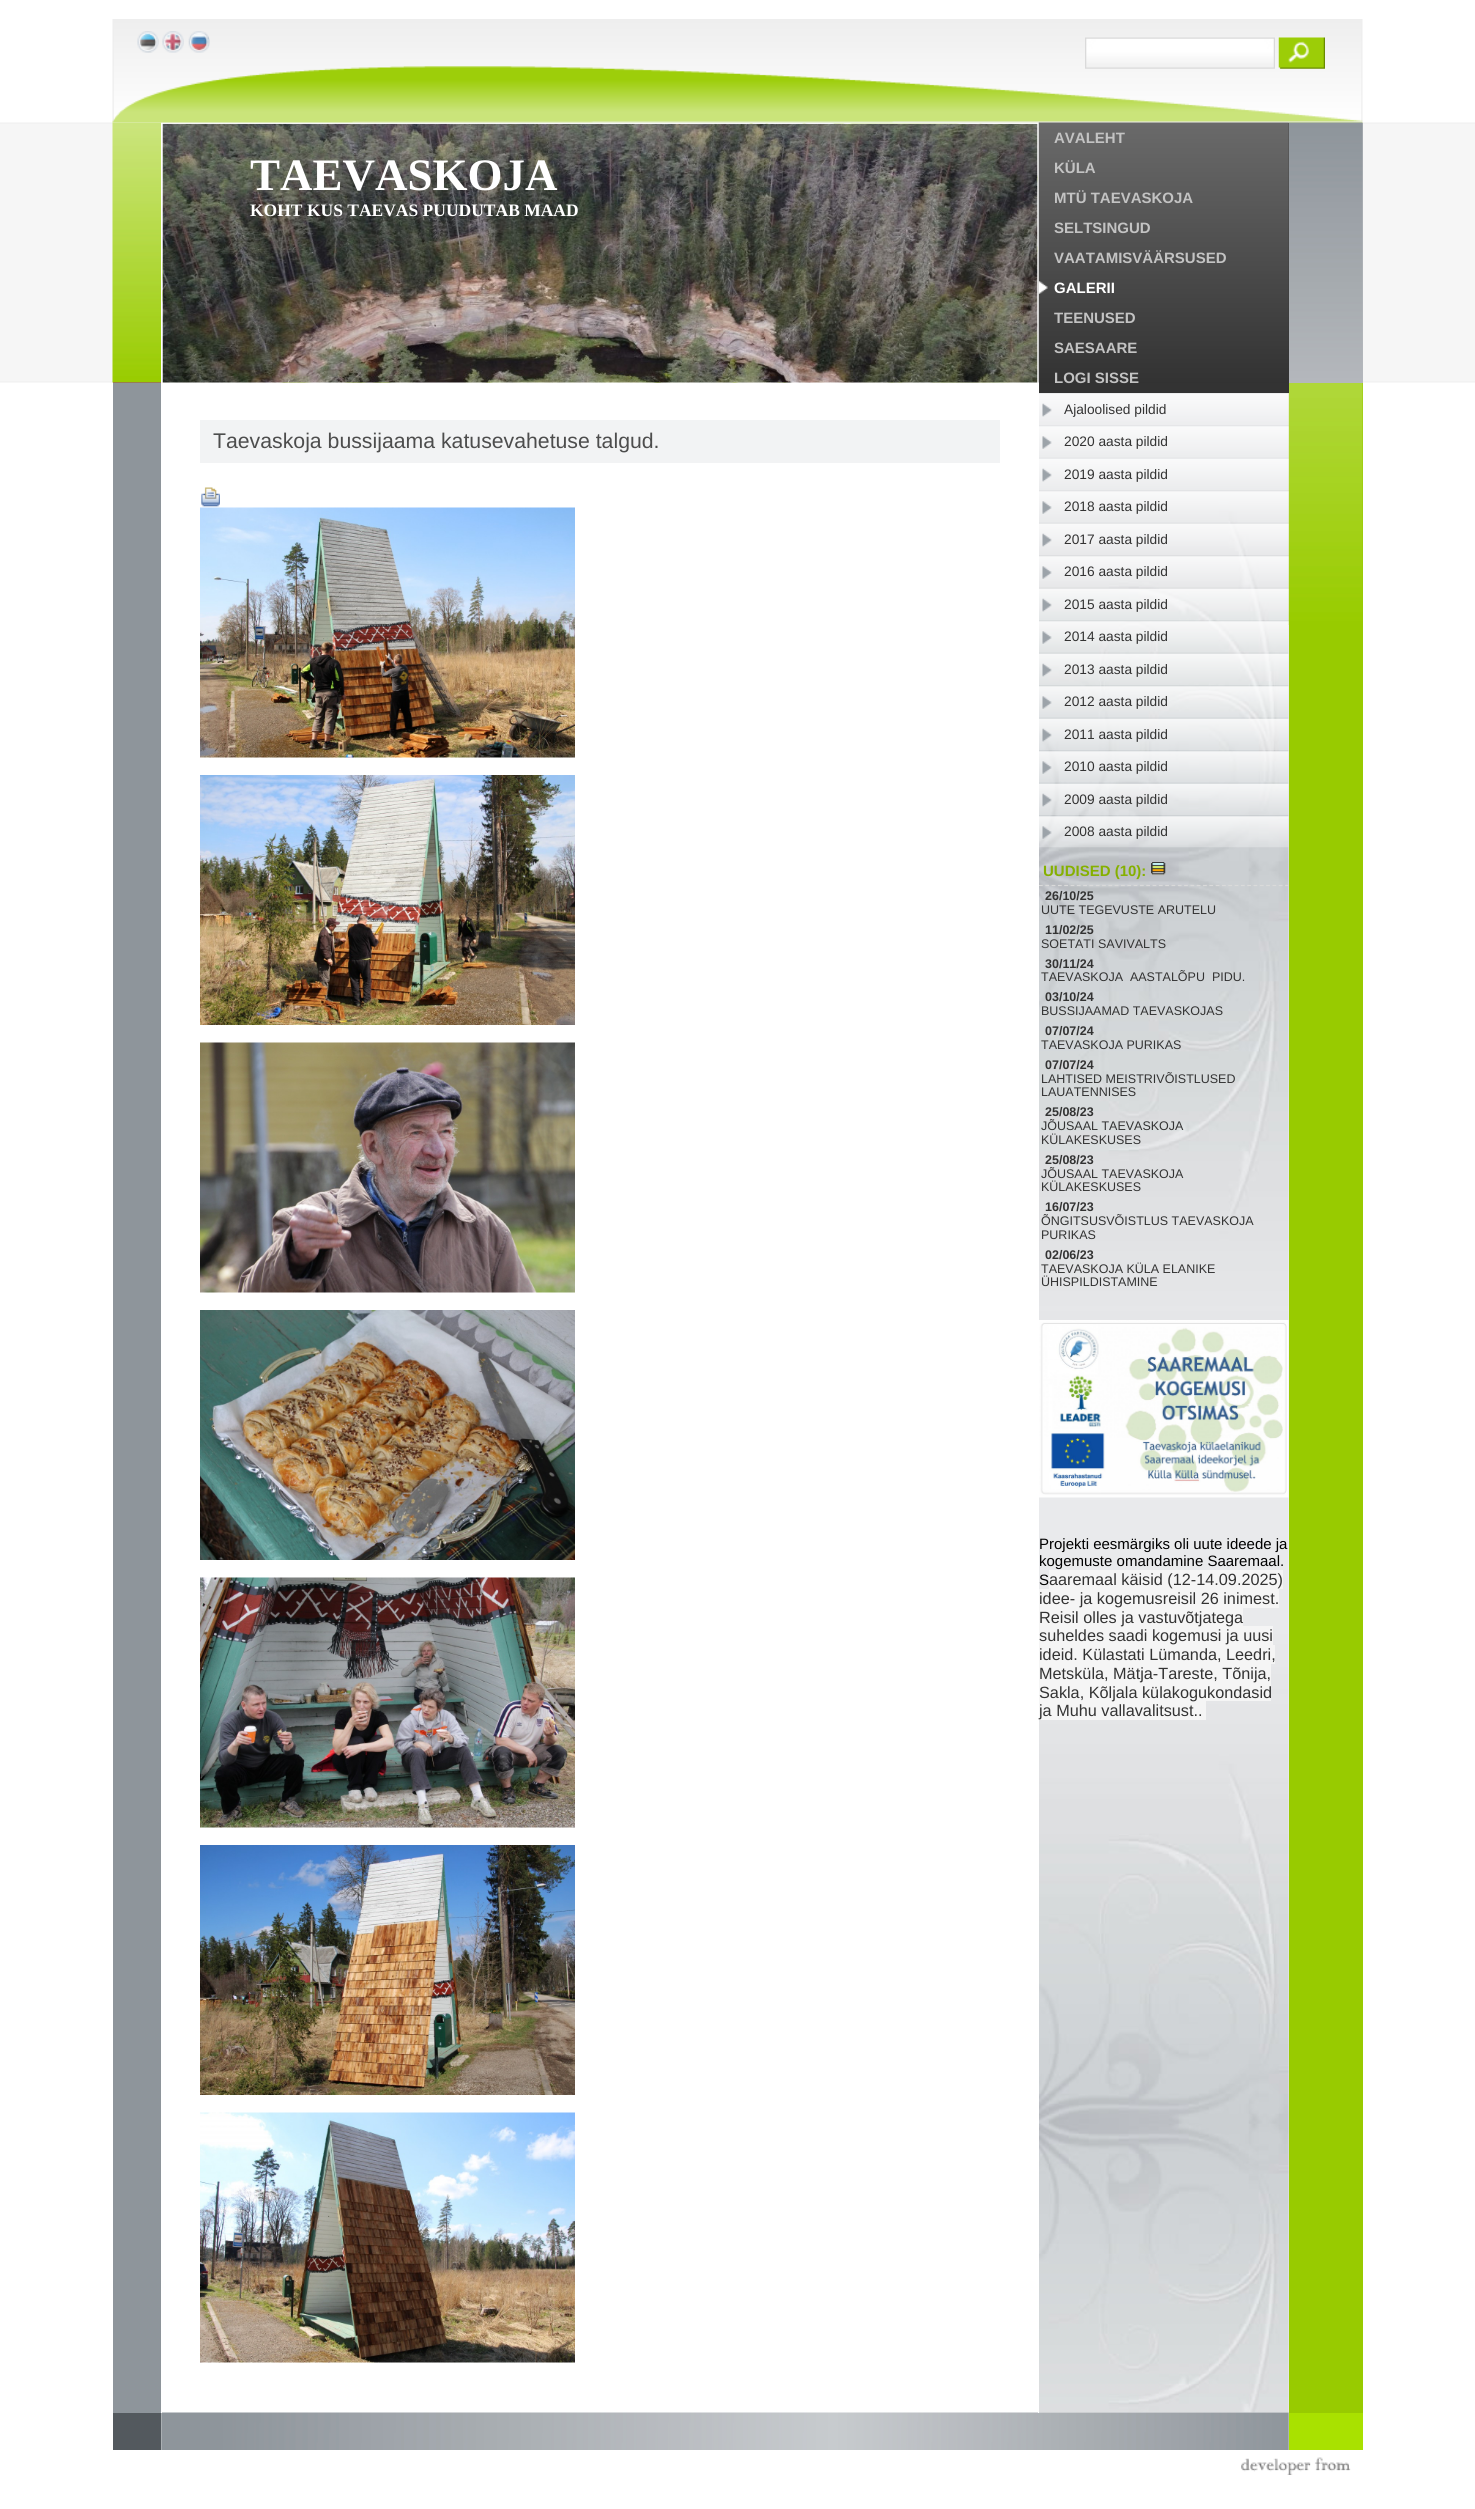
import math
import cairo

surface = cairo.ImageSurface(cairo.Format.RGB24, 1475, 2509)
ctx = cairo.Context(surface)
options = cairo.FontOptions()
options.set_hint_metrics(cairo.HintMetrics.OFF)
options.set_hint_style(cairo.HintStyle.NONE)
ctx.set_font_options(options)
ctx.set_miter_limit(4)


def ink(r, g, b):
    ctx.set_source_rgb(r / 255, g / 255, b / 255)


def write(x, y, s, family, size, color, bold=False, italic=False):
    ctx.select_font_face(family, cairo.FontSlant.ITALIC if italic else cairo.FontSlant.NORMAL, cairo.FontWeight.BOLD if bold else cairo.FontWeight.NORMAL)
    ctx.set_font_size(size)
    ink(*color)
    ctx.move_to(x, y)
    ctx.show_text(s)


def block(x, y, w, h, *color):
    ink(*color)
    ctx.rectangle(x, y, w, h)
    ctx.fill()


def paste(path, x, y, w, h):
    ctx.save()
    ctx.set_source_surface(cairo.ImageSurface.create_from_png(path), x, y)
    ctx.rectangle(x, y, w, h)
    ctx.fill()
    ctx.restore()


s1 = dict(family="Liberation Serif", size=45, color=(255, 255, 255), bold=True)
s2 = dict(family="Liberation Serif", size=17.5, color=(255, 255, 255), bold=True)
s3 = dict(family="Liberation Sans", size=21.25, color=(77, 77, 77))
s4 = dict(family="Liberation Sans", size=15, color=(195, 195, 195), bold=True)
s5 = dict(family="Liberation Sans", size=15, color=(255, 255, 255), bold=True)
s6 = dict(family="Liberation Sans", size=13.75, color=(51, 51, 51))
s7 = dict(family="Liberation Sans", size=15, color=(133, 176, 0), bold=True)
s8 = dict(family="Liberation Sans", size=12.5, color=(51, 51, 51), bold=True)
s9 = dict(family="Liberation Sans", size=12.5, color=(51, 51, 51))
s10 = dict(family="Liberation Sans", size=15, color=(0, 0, 0))
s11 = dict(family="Liberation Sans", size=16.25, color=(51, 51, 51))

ink(255, 255, 255)
ctx.paint()
paste("pic1.png", 0, 122, 1475, 261)
paste("pic2.png", 112, 19, 1251, 104)
paste("pic3.png", 137, 31, 22, 22)
paste("pic4.png", 162, 31, 22, 22)
paste("pic5.png", 188, 31, 22, 22)
paste("pic6.png", 1085, 37, 190, 32)
paste("pic7.png", 1278, 37, 47, 32)
block(113, 383, 48, 2030, 142, 149, 155)
block(113, 382, 48, 1, 153, 51, 153)
paste("pic8.png", 112, 122, 50, 261)
block(162, 124, 1127, 259, 255, 255, 255)
paste("pic9.png", 1039, 393, 250, 2020)
block(161, 123, 878, 1, 255, 255, 255)
paste("pic40.png", 161, 2412, 1128, 38)
block(1038, 2412, 1, 1, 255, 255, 255)
block(161, 123, 1, 2290, 255, 255, 255)
paste("pic10.png", 162, 123, 876, 260)
paste("pic11.png", 162, 123, 876, 260)
write(250, 190, "TAEVASKOJA", **s1)
write(250, 216, "KOHT KUS TAEVAS PUUDUTAB MAAD", **s2)
block(200, 420, 800, 43, 242, 243, 244)
write(213, 448, "Taevaskoja bussijaama katusevahetuse talgud.", **s3)
paste("pic12.png", 201, 487, 19, 20)
paste("pic13.png", 200, 507, 375, 251)
paste("pic14.png", 200, 775, 375, 250)
paste("pic15.png", 200, 1042, 375, 251)
paste("pic16.png", 200, 1310, 375, 250)
paste("pic17.png", 200, 1577, 375, 251)
paste("pic18.png", 200, 1845, 375, 250)
paste("pic19.png", 200, 2112, 375, 251)
block(1289, 383, 74, 2030, 152, 203, 0)
paste("pic38.png", 1288, 122, 75, 503)
block(1289, 123, 74, 260, 180, 184, 188)
paste("pic39.png", 1288, 122, 75, 261)
block(1039, 123, 250, 270, 51, 51, 51)
paste("pic20.png", 1038, 122, 251, 261)
write(1054, 143, "AVALEHT", **s4)
write(1054, 173, "KÜLA", **s4)
write(1054, 203, "MTÜ TAEVASKOJA", **s4)
write(1054, 233, "SELTSINGUD", **s4)
write(1054, 263, "VAATAMISVÄÄRSUSED", **s4)
paste("pic21.png", 1038, 281, 10, 13)
write(1054, 293, "GALERII", **s5)
write(1054, 323, "TEENUSED", **s4)
write(1054, 353, "SAESAARE", **s4)
write(1054, 383, "LOGI SISSE", **s4)
paste("pic22.png", 1039, 393, 250, 32)
write(1064, 414, "Ajaloolised pildid", **s6)
paste("pic23.png", 1039, 426, 250, 32)
write(1064, 446, "2020 aasta pildid", **s6)
paste("pic24.png", 1039, 458, 250, 32)
write(1064, 479, "2019 aasta pildid", **s6)
paste("pic25.png", 1039, 491, 250, 32)
write(1064, 511, "2018 aasta pildid", **s6)
paste("pic26.png", 1039, 523, 250, 32)
write(1064, 544, "2017 aasta pildid", **s6)
paste("pic27.png", 1039, 556, 250, 32)
write(1064, 576, "2016 aasta pildid", **s6)
paste("pic28.png", 1039, 588, 250, 32)
write(1064, 609, "2015 aasta pildid", **s6)
paste("pic29.png", 1039, 621, 250, 32)
write(1064, 641, "2014 aasta pildid", **s6)
paste("pic30.png", 1039, 653, 250, 32)
write(1064, 674, "2013 aasta pildid", **s6)
paste("pic31.png", 1039, 686, 250, 32)
write(1064, 706, "2012 aasta pildid", **s6)
paste("pic32.png", 1039, 718, 250, 32)
write(1064, 739, "2011 aasta pildid", **s6)
paste("pic33.png", 1039, 751, 250, 32)
write(1064, 771, "2010 aasta pildid", **s6)
paste("pic34.png", 1039, 783, 250, 32)
write(1064, 804, "2009 aasta pildid", **s6)
paste("pic35.png", 1039, 816, 250, 32)
write(1064, 836, "2008 aasta pildid", **s6)
ctx.save()
ctx.rectangle(1039, 848, 250, 985)
ctx.clip()
ctx.new_path()
ctx.move_to(1039, 885.5)
ctx.line_to(1301, 885.5)
ink(218, 218, 218)
ctx.set_line_width(1.2)
ctx.set_dash([3.75, 2.56])
ctx.stroke()
ctx.restore()
write(1043, 876, "UUDISED (10):", **s7)
paste("pic36.png", 1151, 862, 15, 14)
write(1045, 900, "26/10/25", **s8)
write(1041, 914, "UUTE TEGEVUSTE ARUTELU", **s9)
write(1045, 934, "11/02/25", **s8)
write(1041, 948, "SOETATI SAVIVALTS", **s9)
write(1045, 968, "30/11/24", **s8)
write(1041, 981, "TAEVASKOJA  AASTALÕPU  PIDU.", **s9)
write(1045, 1001, "03/10/24", **s8)
write(1041, 1015, "BUSSIJAAMAD TAEVASKOJAS", **s9)
write(1045, 1035, "07/07/24", **s8)
write(1041, 1049, "TAEVASKOJA PURIKAS", **s9)
write(1045, 1069, "07/07/24", **s8)
write(1041, 1083, "LAHTISED MEISTRIVÕISTLUSED", **s9)
write(1041, 1096, "LAUATENNISES", **s9)
write(1045, 1116, "25/08/23", **s8)
write(1041, 1130, "JÕUSAAL TAEVASKOJA", **s9)
write(1041, 1144, "KÜLAKESKUSES", **s9)
write(1045, 1164, "25/08/23", **s8)
write(1041, 1178, "JÕUSAAL TAEVASKOJA", **s9)
write(1041, 1191, "KÜLAKESKUSES", **s9)
write(1045, 1211, "16/07/23", **s8)
write(1041, 1225, "ÕNGITSUSVÕISTLUS TAEVASKOJA", **s9)
write(1041, 1239, "PURIKAS", **s9)
write(1045, 1259, "02/06/23", **s8)
write(1041, 1273, "TAEVASKOJA KÜLA ELANIKE", **s9)
write(1041, 1286, "ÜHISPILDISTAMINE", **s9)
paste("pic37.png", 1039, 1320, 250, 178)
write(1039, 1549, "Projekti eesmärgiks oli uute ideede ja", **s10)
write(1039, 1566, "kogemuste omandamine Saaremaal.", **s10)
write(1039, 1585, "S", **s10)
block(1049, 1570, 234, 19, 245, 245, 245)
write(1049, 1585, "aaremaal käisid (12-14.09.2025)", **s11)
block(1039, 1589, 240, 19, 245, 245, 245)
write(1039, 1604, "idee- ja kogemusreisil 26 inimest.", **s11)
block(1039, 1608, 204, 18, 245, 245, 245)
block(1039, 1626, 234, 19, 245, 245, 245)
write(1039, 1623, "Reisil olles ja vastuvõtjatega", **s11)
write(1039, 1641, "suheldes saadi kogemusi ja uusi", **s11)
block(1039, 1645, 236, 19, 245, 245, 245)
write(1039, 1660, "ideid. Külastati Lümanda, Leedri,", **s11)
block(1039, 1664, 232, 37, 245, 245, 245)
write(1039, 1679, "Metsküla, Mätja-Tareste, Tõnija,", **s11)
block(1039, 1701, 167, 19, 245, 245, 245)
write(1039, 1698, "Sakla, Kõljala külakogukondasid", **s11)
write(1039, 1716, "ja Muhu vallavalitsust..", **s11)
block(113, 2413, 48, 37, 83, 89, 94)
block(1289, 2413, 74, 37, 169, 225, 0)
paste("pic41.png", 1241, 2457, 110, 18)
surface.write_to_png("screenshot.png")
